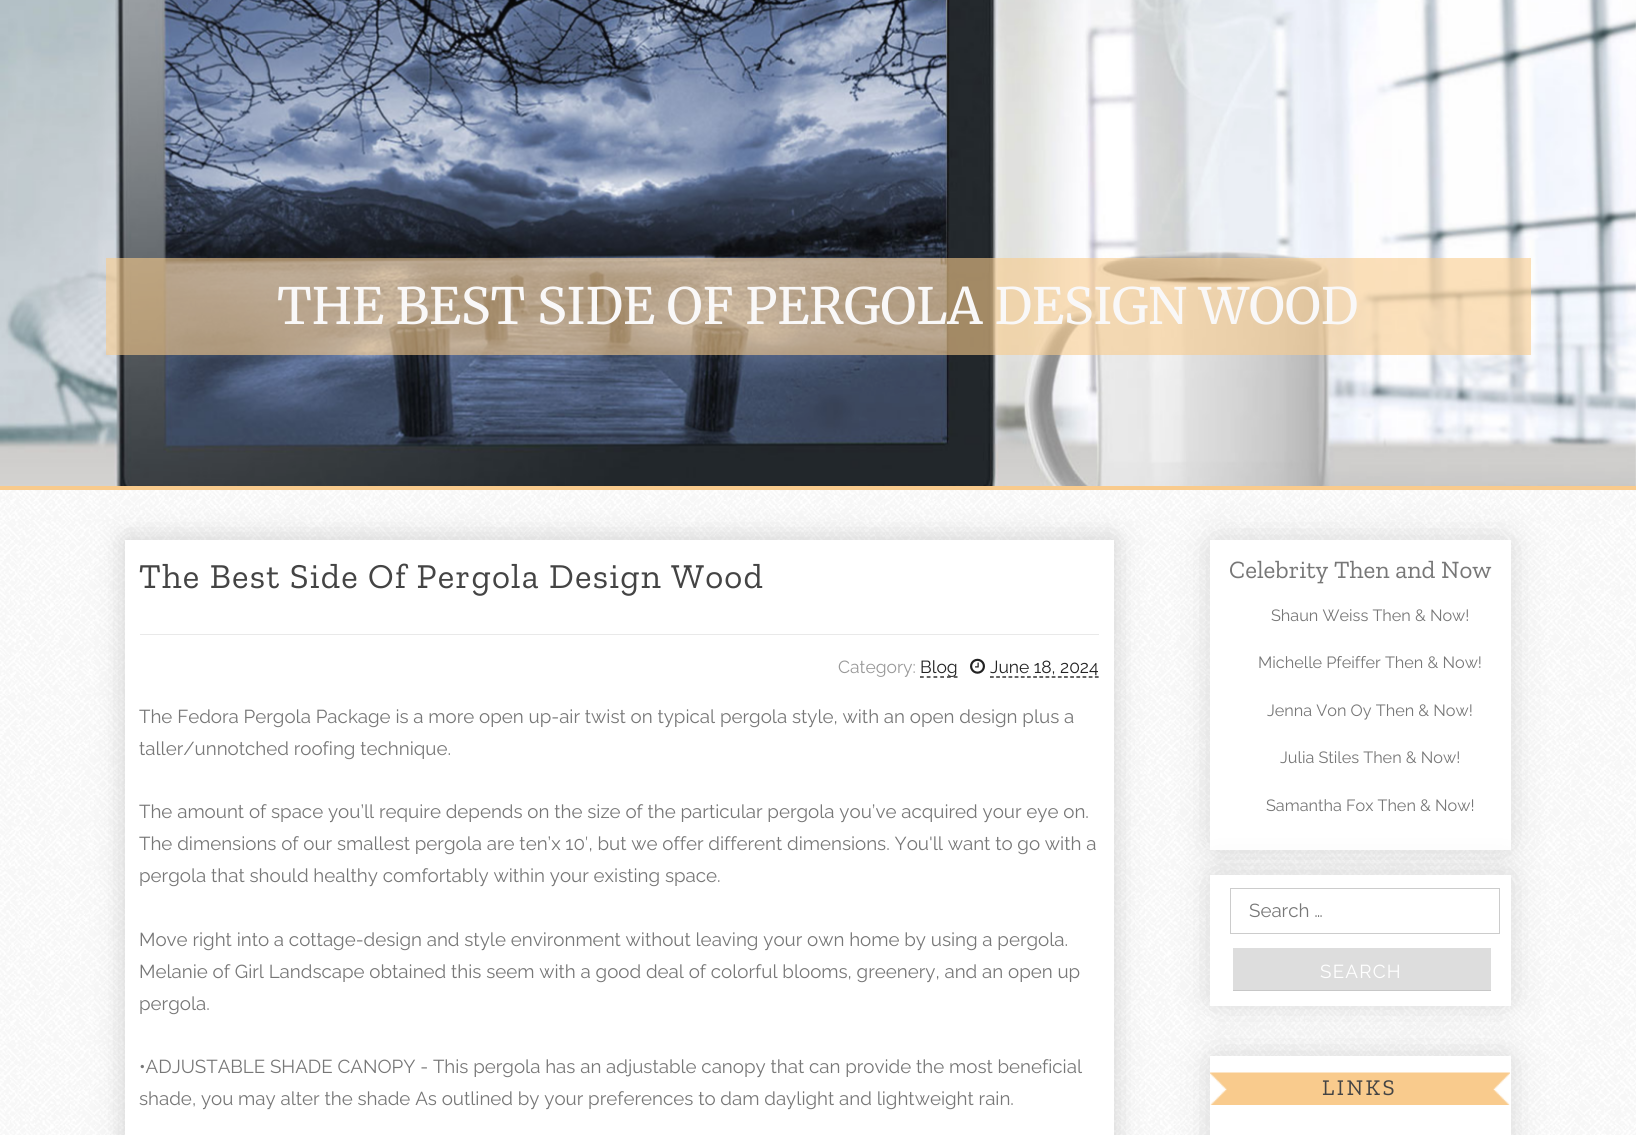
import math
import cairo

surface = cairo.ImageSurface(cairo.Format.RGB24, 1636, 1135)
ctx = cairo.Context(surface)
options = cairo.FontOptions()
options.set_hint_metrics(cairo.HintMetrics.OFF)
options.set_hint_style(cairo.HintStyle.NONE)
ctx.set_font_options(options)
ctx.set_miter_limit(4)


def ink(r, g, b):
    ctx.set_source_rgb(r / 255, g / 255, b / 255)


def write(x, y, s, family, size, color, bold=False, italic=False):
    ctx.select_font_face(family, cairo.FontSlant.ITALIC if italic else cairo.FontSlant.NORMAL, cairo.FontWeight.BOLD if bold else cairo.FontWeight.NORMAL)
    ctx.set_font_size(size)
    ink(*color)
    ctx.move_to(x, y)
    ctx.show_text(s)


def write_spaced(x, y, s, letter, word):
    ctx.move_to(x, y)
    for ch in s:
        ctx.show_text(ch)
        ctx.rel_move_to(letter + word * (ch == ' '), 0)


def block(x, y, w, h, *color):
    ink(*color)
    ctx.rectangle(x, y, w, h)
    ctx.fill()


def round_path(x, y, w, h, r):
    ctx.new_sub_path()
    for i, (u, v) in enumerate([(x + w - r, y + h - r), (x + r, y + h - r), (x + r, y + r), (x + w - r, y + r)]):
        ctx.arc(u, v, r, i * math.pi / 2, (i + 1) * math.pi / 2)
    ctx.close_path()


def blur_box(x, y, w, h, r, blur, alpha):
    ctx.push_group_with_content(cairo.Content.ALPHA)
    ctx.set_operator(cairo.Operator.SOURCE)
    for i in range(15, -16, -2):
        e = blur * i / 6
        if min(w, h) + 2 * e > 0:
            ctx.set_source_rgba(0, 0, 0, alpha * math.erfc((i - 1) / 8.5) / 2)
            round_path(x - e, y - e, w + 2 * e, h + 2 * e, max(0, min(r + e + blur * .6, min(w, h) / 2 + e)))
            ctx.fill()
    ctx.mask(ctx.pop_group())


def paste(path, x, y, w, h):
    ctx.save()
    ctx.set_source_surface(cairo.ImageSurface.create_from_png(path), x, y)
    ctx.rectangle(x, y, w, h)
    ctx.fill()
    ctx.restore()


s1 = dict(family="Merriweather", size=50, color=(249, 248, 248))
s2 = dict(family="Raleway", size=17.5, color=(153, 153, 153))
s3 = dict(family="Raleway", size=17.5, color=(34, 34, 34))
s4 = dict(family="Raleway", size=18.75, color=(119, 119, 119))
s5 = dict(family="Zilla Slab", size=25, color=(119, 119, 119))
s6 = dict(family="Raleway", size=16.25, color=(119, 119, 119))

ink(255, 255, 255)
ctx.paint()
paste("pic1.png", 0, 0, 1636, 1135)
paste("pic2.png", 0, 0, 1636, 486)
block(0, 486, 1636, 4, 249, 203, 141)
ctx.set_source_rgba(1, 1, 1, 0.03)
ctx.rectangle(0, 0, 1636, 486)
ctx.fill()
ctx.set_source_rgba(0.976, 0.796, 0.553, 0.6)
ctx.rectangle(106, 258, 1425, 97)
ctx.fill()
write(277, 324, "THE BEST SIDE OF PERGOLA DESIGN WOOD", **s1)
ink(0, 0, 0)
blur_box(125, 539, 989, 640, 0, 14.5, 0.17)
block(125, 540, 989, 595, 255, 255, 255)
ctx.select_font_face("Zilla Slab")
ctx.set_font_size(35)
ink(68, 68, 68)
write_spaced(139, 588, "The Best Side Of Pergola Design Wood", 1.25, 0)
block(140, 634, 959, 1, 233, 233, 233)
write(838, 673, "Category:", **s2)
ctx.new_path()
ctx.move_to(920, 677)
ctx.line_to(957.5, 677)
ink(0, 0, 0)
ctx.set_line_width(1.2)
ctx.set_dash([3.75, 3])
ctx.stroke()
write(920, 673, "Blog", **s3)
paste("pic3.png", 970, 658, 15, 16)
write(990, 673, "June 18, 2024", **s3)
ctx.new_path()
ctx.move_to(990, 677)
ctx.line_to(1099, 677)
ink(0, 0, 0)
ctx.set_dash([3.75, 2.42])
ctx.stroke()
write(139, 723, "The Fedora Pergola Package is a more open up-air twist on typical pergola style, with an open design plus a", **s4)
write(139, 755, "taller/unnotched roofing technique.", **s4)
write(139, 818, "The amount of space you’ll require depends on the size of the particular pergola you’ve acquired your eye on.", **s4)
write(139, 850, "The dimensions of our smallest pergola are ten’x 10′, but we offer different dimensions. You'll want to go with a", **s4)
write(139, 882, "pergola that should healthy comfortably within your existing space.", **s4)
write(139, 946, "Move right into a cottage-design and style environment without leaving your own home by using a pergola.", **s4)
write(139, 978, "Melanie of Girl Landscape obtained this seem with a good deal of colorful blooms, greenery, and an open up", **s4)
write(139, 1010, "pergola.", **s4)
write(139, 1073, "•ADJUSTABLE SHADE CANOPY - This pergola has an adjustable canopy that can provide the most beneficial", **s4)
write(139, 1105, "shade, you may alter the shade As outlined by your preferences to dam daylight and lightweight rain.", **s4)
ink(0, 0, 0)
blur_box(1215, 544, 291, 300, 0, 19, 0.17)
block(1210, 540, 301, 310, 255, 255, 255)
write(1229, 578, "Celebrity Then and Now", **s5)
write(1271, 621, "Shaun Weiss Then & Now!", **s6)
write(1258, 668, "Michelle Pfeiffer Then & Now!", **s6)
write(1267, 716, "Jenna Von Oy Then & Now!", **s6)
write(1280, 763, "Julia Stiles Then & Now!", **s6)
write(1266, 811, "Samantha Fox Then & Now!", **s6)
ink(0, 0, 0)
blur_box(1215, 879, 291, 121, 0, 19, 0.17)
block(1210, 875, 301, 131, 255, 255, 255)
ctx.rectangle(1230.5, 888.5, 269, 45)
ink(204, 204, 204)
ctx.set_line_width(1)
ctx.set_dash([])
ctx.stroke()
write(1249, 917, "Search …", **s4)
block(1233, 948, 258, 42, 221, 221, 221)
block(1233, 990, 258, 1, 199, 199, 199)
ink(255, 255, 255)
write_spaced(1320, 978, "SEARCH", 1.25, 0)
ink(0, 0, 0)
blur_box(1215, 1060, 291, 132, 0, 19, 0.17)
block(1210, 1056, 301, 79, 255, 255, 255)
paste("pic4.png", 1210, 1072, 300, 33)
ctx.select_font_face("Zilla Slab")
ctx.set_font_size(22.5)
ink(68, 68, 68)
write_spaced(1322, 1095, "LINKS", 2.5, 0)
surface.write_to_png("screenshot.png")
